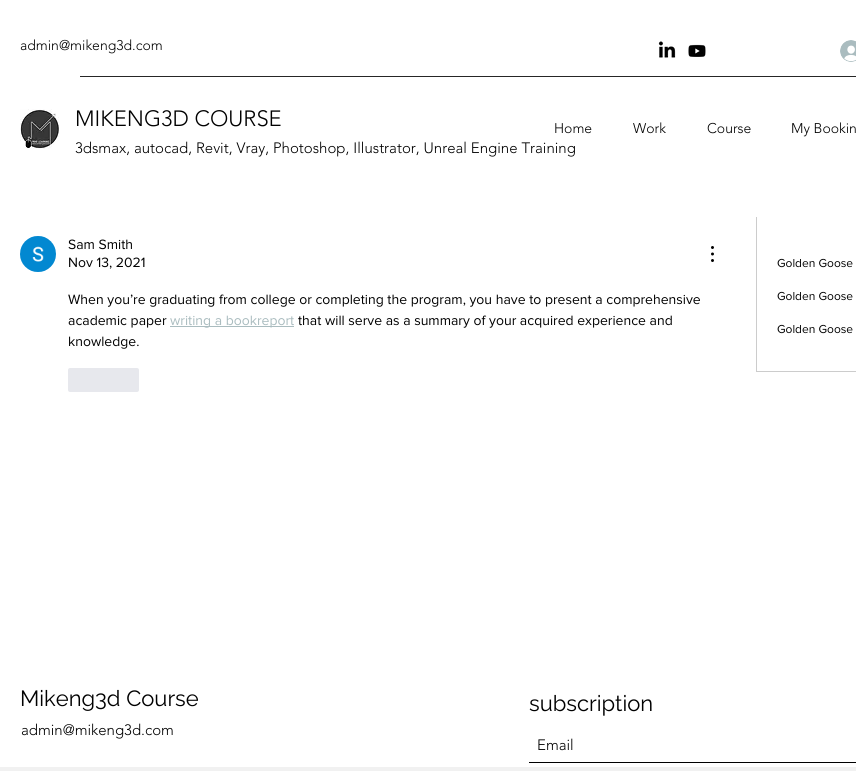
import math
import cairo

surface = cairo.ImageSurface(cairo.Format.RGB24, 856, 771)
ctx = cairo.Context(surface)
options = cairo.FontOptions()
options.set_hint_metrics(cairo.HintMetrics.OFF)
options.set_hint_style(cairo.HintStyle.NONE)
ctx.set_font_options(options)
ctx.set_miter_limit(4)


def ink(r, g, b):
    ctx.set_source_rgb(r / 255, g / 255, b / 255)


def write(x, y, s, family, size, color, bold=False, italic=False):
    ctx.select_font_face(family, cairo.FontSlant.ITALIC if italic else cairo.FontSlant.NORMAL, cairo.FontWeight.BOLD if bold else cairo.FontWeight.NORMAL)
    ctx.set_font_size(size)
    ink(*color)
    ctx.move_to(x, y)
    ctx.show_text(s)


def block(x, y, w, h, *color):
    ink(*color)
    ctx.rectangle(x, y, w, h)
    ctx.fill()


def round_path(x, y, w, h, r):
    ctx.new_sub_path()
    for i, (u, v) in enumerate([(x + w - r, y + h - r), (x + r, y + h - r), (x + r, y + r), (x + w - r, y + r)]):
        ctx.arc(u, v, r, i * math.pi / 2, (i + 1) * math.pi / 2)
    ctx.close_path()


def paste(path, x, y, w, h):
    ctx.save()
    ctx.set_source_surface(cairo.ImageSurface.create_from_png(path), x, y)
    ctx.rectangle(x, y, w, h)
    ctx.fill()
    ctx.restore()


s1 = dict(family="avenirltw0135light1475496 Light", size=14, color=(0, 0, 0))
s2 = dict(family="avenirltw0135light1475496 Light", size=22, color=(0, 0, 0))
s3 = dict(family="avenirltw0135light1475496 Light", size=15, color=(0, 0, 0))
s4 = dict(family="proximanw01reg", size=14, color=(0, 0, 0))
s5 = dict(family="proximanw01reg", size=14, color=(170, 188, 191))
s6 = dict(family="proximanw01reg", size=12, color=(0, 0, 0))
s7 = dict(family="Raleway", size=22, color=(0, 0, 0))

ink(255, 255, 255)
ctx.paint()
write(20, 50, "admin@mikeng3d.com", **s1)
paste("pic1.png", 658, 41, 18, 17)
paste("pic2.png", 688, 44, 18, 13)
paste("pic3.png", 840, 40, 16, 22)
block(80, 76, 776, 1, 38, 38, 38)
paste("pic4.png", 20, 109, 39, 40)
write(75, 126, "MIKENG3D COURSE", **s2)
write(75, 153, "3dsmax, autocad, Revit, Vray, Photoshop, Illustrator, Unreal Engine Training", **s3)
write(554, 133, "Home", **s1)
write(633, 133, "Work", **s1)
write(707, 133, "Course", **s1)
write(791, 133, "My Bookin", **s1)
ctx.rectangle(756.5, 183.5, 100, 188)
ink(204, 204, 204)
ctx.set_line_width(1)
ctx.stroke()
block(756, 183, 100, 34, 255, 255, 255)
paste("pic5.png", 20, 236, 36, 36)
write(68, 249, "Sam Smith", **s4)
write(68, 267, "Nov 13, 2021", **s4)
paste("pic6.png", 711, 246, 3, 16)
write(68, 304, "When you’re graduating from college or completing the program, you have to present a comprehensive", **s4)
write(68, 325, "academic paper", **s4)
block(170, 326, 124, 1, 170, 188, 191)
write(170, 325, "writing a bookreport", **s5)
write(298, 325, "that will serve as a summary of your acquired experience and", **s4)
write(68, 346, "knowledge.", **s4)
ink(231, 232, 237)
round_path(68, 368, 71, 24, 2)
ctx.fill()
write(777, 267, "Golden Goose", **s6)
write(777, 300, "Golden Goose", **s6)
write(777, 333, "Golden Goose", **s6)
write(20, 706, "Mikeng3d Course", **s7)
write(529, 711, "subscription", **s7)
block(529, 762, 327, 1, 0, 0, 0)
write(537, 750, "Email", **s3)
write(21, 735, "admin@mikeng3d.com", **s3)
block(0, 767, 856, 4, 241, 241, 241)
surface.write_to_png("screenshot.png")
